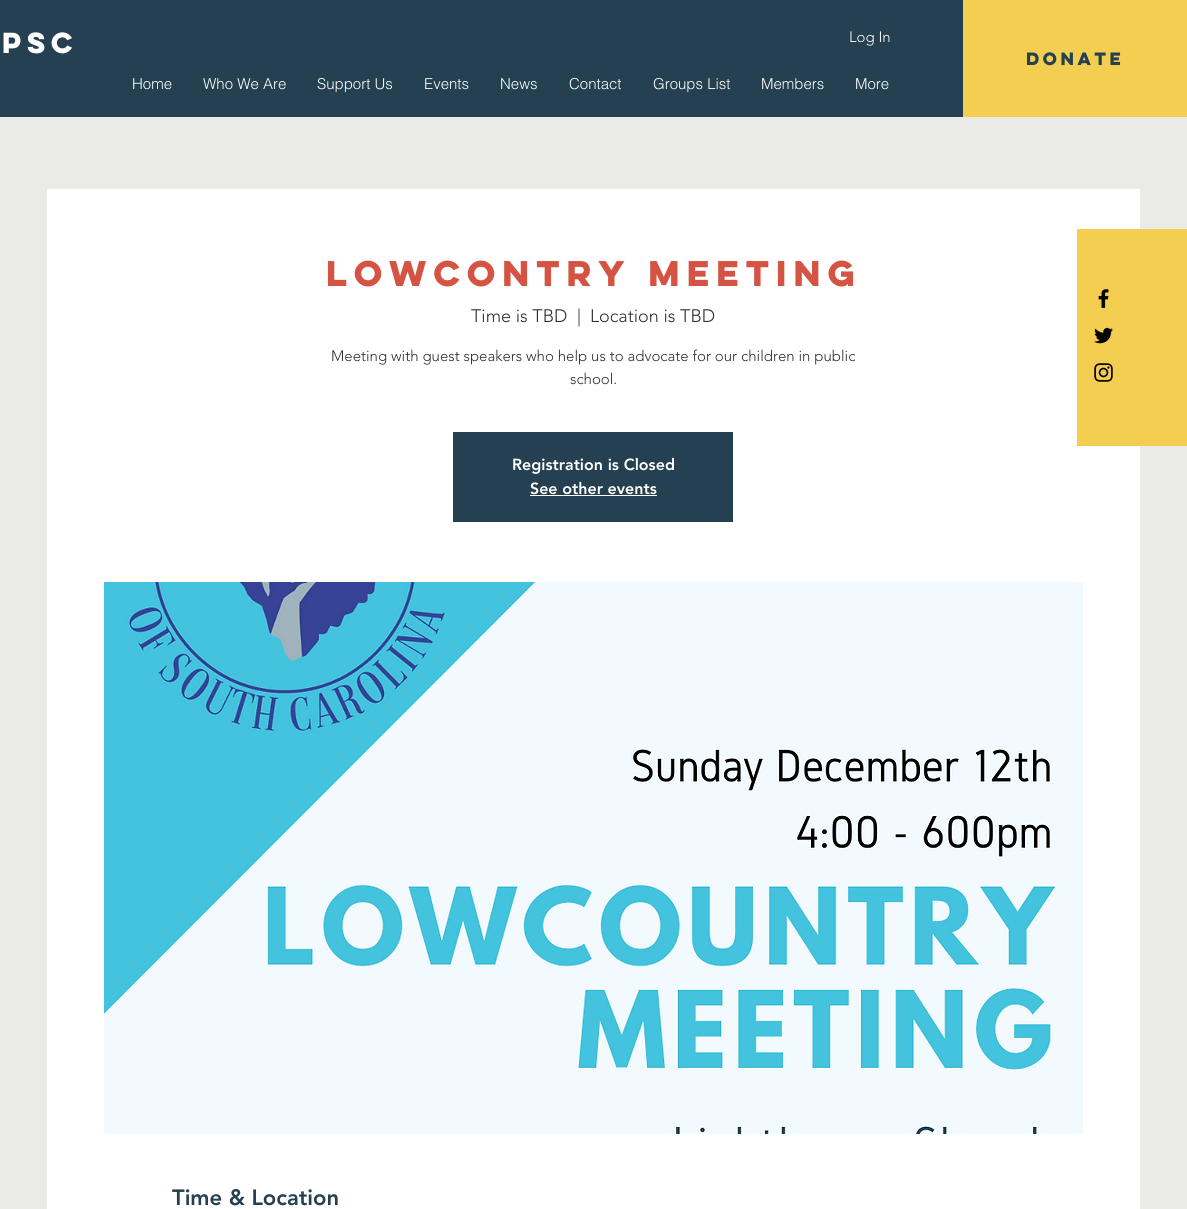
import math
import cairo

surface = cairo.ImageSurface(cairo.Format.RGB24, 1187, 1209)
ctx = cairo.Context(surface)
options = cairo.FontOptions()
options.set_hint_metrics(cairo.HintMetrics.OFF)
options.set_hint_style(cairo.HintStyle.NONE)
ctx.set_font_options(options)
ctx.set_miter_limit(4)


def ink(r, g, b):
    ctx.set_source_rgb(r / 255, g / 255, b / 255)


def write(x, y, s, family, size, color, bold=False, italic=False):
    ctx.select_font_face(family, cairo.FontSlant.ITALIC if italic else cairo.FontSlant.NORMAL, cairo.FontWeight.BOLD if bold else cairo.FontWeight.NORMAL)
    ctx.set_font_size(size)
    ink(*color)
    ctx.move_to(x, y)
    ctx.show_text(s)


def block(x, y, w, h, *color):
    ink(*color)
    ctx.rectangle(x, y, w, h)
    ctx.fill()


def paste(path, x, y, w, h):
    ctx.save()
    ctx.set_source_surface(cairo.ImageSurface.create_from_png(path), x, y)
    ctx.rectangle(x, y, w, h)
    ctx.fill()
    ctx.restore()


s1 = dict(family="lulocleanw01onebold", size=26, color=(255, 255, 255), bold=True)
s2 = dict(family="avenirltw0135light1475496 Light", size=15, color=(255, 255, 255))
s3 = dict(family="helvetica Light", size=15, color=(255, 255, 255))
s4 = dict(family="lulocleanw01onebold", size=16, color=(37, 65, 81), bold=True)
s5 = dict(family="lulocleanw01onebold", size=32, color=(213, 83, 66), bold=True)
s6 = dict(family="avenirltw0135light1475496 Light", size=18, color=(47, 47, 46))
s7 = dict(family="avenirltw0135light1475496 Light", size=15, color=(47, 47, 46))
s8 = dict(family="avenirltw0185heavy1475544 Black", size=16, color=(255, 255, 255))
s9 = dict(family="avenirltw0185heavy1475544 Black", size=22, color=(37, 65, 81))

ink(234, 234, 232)
ctx.paint()
block(0, 0, 963, 117, 37, 65, 81)
write(2, 53, "PSC", **s1)
write(849, 42, "Log In", **s2)
write(132, 89, "Home", **s3)
write(203, 89, "Who We Are", **s3)
write(317, 89, "Support Us", **s3)
write(424, 89, "Events", **s3)
write(500, 89, "News", **s3)
write(569, 89, "Contact", **s3)
write(653, 89, "Groups List", **s3)
write(761, 89, "Members", **s3)
write(855, 89, "More", **s3)
block(963, 0, 224, 117, 244, 206, 80)
write(1026, 65, "DONATE", **s4)
block(47, 189, 1093, 1020, 255, 255, 255)
block(1077, 229, 110, 217, 244, 206, 80)
paste("pic1.png", 1098, 289, 11, 20)
paste("pic2.png", 1094, 327, 19, 17)
paste("pic3.png", 1094, 363, 19, 19)
write(326, 286, "Lowcontry Meeting", **s5)
write(471, 322, "Time is TBD", **s6)
write(577, 322, "|", **s6)
write(590, 322, "Location is TBD", **s6)
write(331, 361, "Meeting with guest speakers who help us to advocate for our children in public", **s7)
write(570, 384, "school.", **s7)
block(453, 432, 280, 90, 37, 65, 81)
write(512, 470, "Registration is Closed", **s8)
write(530, 494, "See other events", **s8)
block(530, 495, 127, 1, 255, 255, 255)
paste("pic4.png", 104, 582, 979, 552)
write(172, 1205, "Time & Location", **s9)
surface.write_to_png("screenshot.png")
